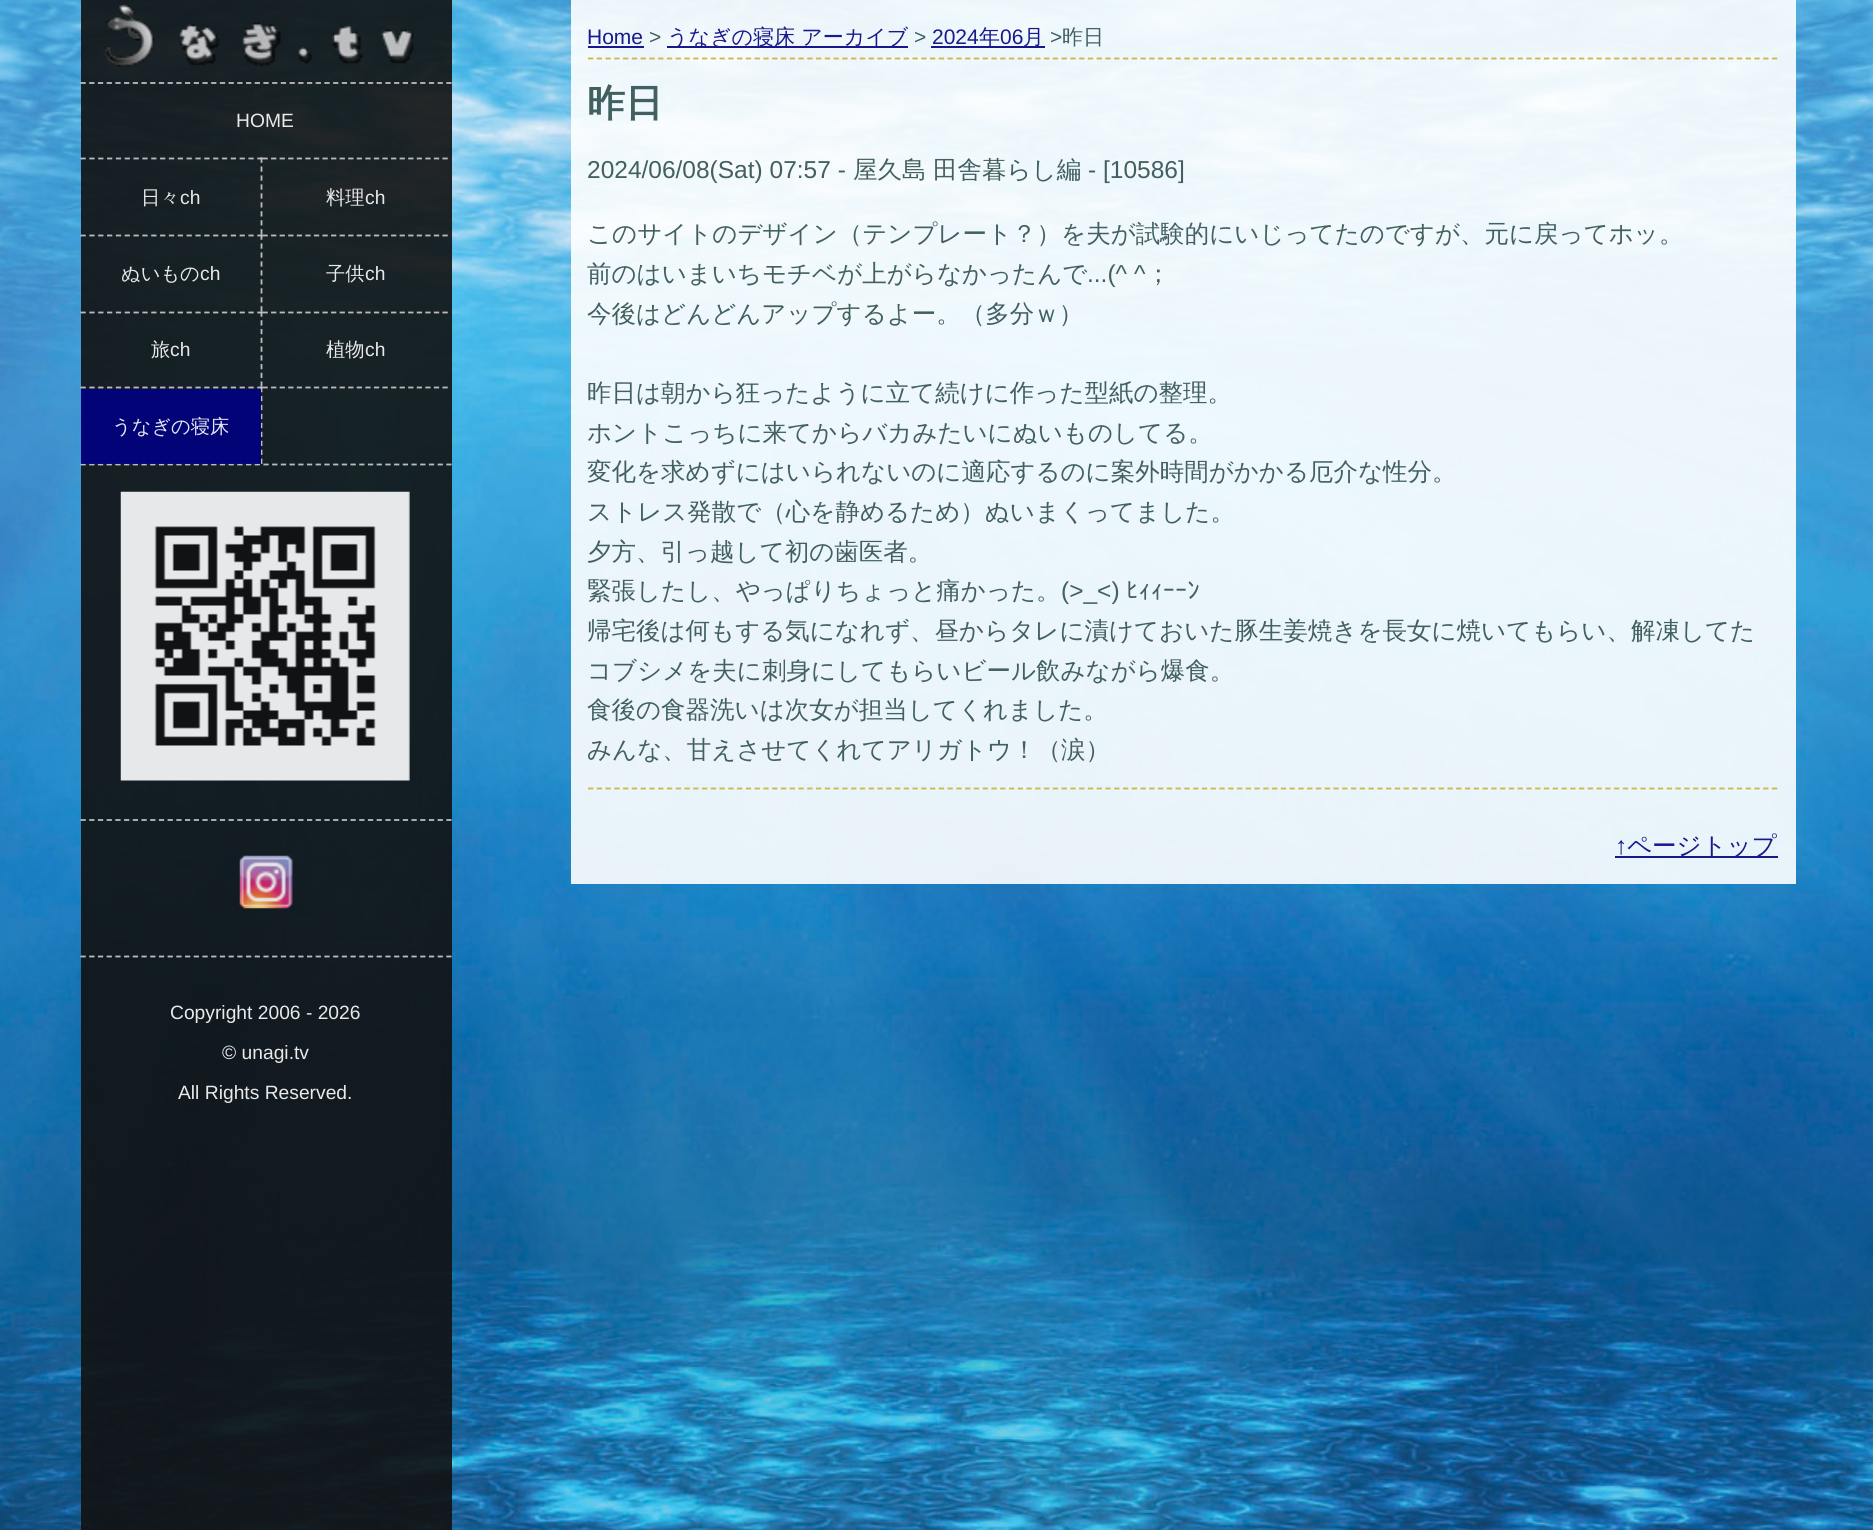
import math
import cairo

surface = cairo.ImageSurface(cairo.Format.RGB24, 1873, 1530)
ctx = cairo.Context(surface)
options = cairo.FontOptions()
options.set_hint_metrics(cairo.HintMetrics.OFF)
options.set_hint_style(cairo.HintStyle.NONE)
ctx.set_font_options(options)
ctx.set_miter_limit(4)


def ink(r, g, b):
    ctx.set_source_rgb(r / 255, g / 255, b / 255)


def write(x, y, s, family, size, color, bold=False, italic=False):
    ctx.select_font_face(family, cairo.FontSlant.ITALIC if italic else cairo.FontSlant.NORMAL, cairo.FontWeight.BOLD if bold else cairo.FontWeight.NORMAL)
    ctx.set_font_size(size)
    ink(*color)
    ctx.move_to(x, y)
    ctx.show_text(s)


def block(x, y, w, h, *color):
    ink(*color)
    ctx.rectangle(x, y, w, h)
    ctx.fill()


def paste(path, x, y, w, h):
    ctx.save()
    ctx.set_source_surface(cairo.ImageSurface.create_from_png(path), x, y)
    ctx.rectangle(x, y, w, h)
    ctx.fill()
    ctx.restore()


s1 = dict(family="Liberation Sans", size=19.25, color=(233, 233, 233))
s2 = dict(family="WenQuanYi Zen Hei Medium", size=19.25, color=(233, 233, 233))
s3 = dict(family="WenQuanYi Zen Hei Medium", size=19.25, color=(230, 230, 241))
s4 = dict(family="Liberation Sans", size=21, color=(24, 25, 140))
s5 = dict(family="Liberation Sans", size=21, color=(66, 96, 96))
s6 = dict(family="WenQuanYi Zen Hei Medium", size=21, color=(24, 25, 140))
s7 = dict(family="WenQuanYi Zen Hei Medium", size=21, color=(66, 96, 96))
s8 = dict(family="WenQuanYi Zen Hei", size=38, color=(66, 96, 96), bold=True)
s9 = dict(family="Liberation Sans", size=24.5, color=(66, 96, 96))
s10 = dict(family="WenQuanYi Zen Hei Medium", size=24.5, color=(66, 96, 96))
s11 = dict(family="IPAGothic", size=24.5, color=(66, 96, 96))
s12 = dict(family="Liberation Sans", size=24.5, color=(24, 25, 140))
s13 = dict(family="WenQuanYi Zen Hei Medium", size=24.5, color=(24, 25, 140))

ink(255, 255, 255)
ctx.paint()
paste("pic1.png", 0, 0, 1873, 1530)
ctx.set_source_rgba(0.067, 0.067, 0.067, 0.9)
ctx.rectangle(81, 0, 371, 1530)
ctx.fill()
paste("pic2.png", 104, 4, 310, 63)
ctx.new_path()
ctx.move_to(80.5, 83)
ctx.line_to(451.5, 83)
ctx.set_source_rgba(0.8, 0.8, 0.8, 0.9)
ctx.set_line_width(1.8)
ctx.set_dash([5.25, 3.46])
ctx.stroke()
write(236, 127, "HOME", **s1)
ctx.new_path()
ctx.move_to(80.5, 158.5)
ctx.line_to(262.5, 158.5)
ctx.set_source_rgba(0.8, 0.8, 0.8, 0.9)
ctx.set_dash([5.25, 3.59])
ctx.stroke()
ctx.new_path()
ctx.move_to(261.5, 157.5)
ctx.line_to(261.5, 234.5)
ctx.set_dash([5.25, 3.71])
ctx.stroke()
write(141, 204, "日々", **s2)
write(180, 204, "ch", **s1)
ctx.new_path()
ctx.move_to(262.5, 158.5)
ctx.line_to(448, 158.5)
ctx.set_source_rgba(0.8, 0.8, 0.8, 0.9)
ctx.set_dash([5.25, 3.32])
ctx.stroke()
write(326, 204, "料理", **s2)
write(365, 204, "ch", **s1)
ctx.new_path()
ctx.move_to(80.5, 235.5)
ctx.line_to(262.5, 235.5)
ctx.set_source_rgba(0.8, 0.8, 0.8, 0.9)
ctx.set_dash([5.25, 3.59])
ctx.stroke()
ctx.new_path()
ctx.move_to(261.5, 234.5)
ctx.line_to(261.5, 311.5)
ctx.set_dash([5.25, 3.71])
ctx.stroke()
write(121, 280, "ぬいもの", **s2)
write(200, 280, "ch", **s1)
ctx.new_path()
ctx.move_to(262.5, 235.5)
ctx.line_to(448, 235.5)
ctx.set_source_rgba(0.8, 0.8, 0.8, 0.9)
ctx.set_dash([5.25, 3.32])
ctx.stroke()
write(326, 280, "子供", **s2)
write(365, 280, "ch", **s1)
ctx.new_path()
ctx.move_to(80.5, 312.5)
ctx.line_to(262.5, 312.5)
ctx.set_source_rgba(0.8, 0.8, 0.8, 0.9)
ctx.set_dash([5.25, 3.59])
ctx.stroke()
ctx.new_path()
ctx.move_to(261.5, 311.5)
ctx.line_to(261.5, 387)
ctx.set_dash([5.25, 3.5])
ctx.stroke()
write(151, 356, "旅", **s2)
write(170, 356, "ch", **s1)
ctx.new_path()
ctx.move_to(262.5, 312.5)
ctx.line_to(448, 312.5)
ctx.set_source_rgba(0.8, 0.8, 0.8, 0.9)
ctx.set_dash([5.25, 3.32])
ctx.stroke()
write(326, 356, "植物", **s2)
write(365, 356, "ch", **s1)
ctx.new_path()
ctx.move_to(80.5, 387.5)
ctx.line_to(262.5, 387.5)
ctx.set_source_rgba(0.8, 0.8, 0.8, 0.9)
ctx.set_dash([5.25, 3.59])
ctx.stroke()
ctx.new_path()
ctx.move_to(80.5, 464.5)
ctx.line_to(451.5, 464.5)
ctx.set_dash([5.25, 3.46])
ctx.stroke()
ctx.new_path()
ctx.move_to(261.5, 387)
ctx.line_to(261.5, 464)
ctx.set_dash([5.25, 3.71])
ctx.stroke()
ctx.new_path()
ctx.move_to(262.5, 387.5)
ctx.line_to(448, 387.5)
ctx.set_dash([5.25, 3.32])
ctx.stroke()
ctx.set_source_rgba(0, 0, 0.502, 0.9)
ctx.rectangle(81, 389, 180, 75)
ctx.fill()
write(112, 433, "うなぎの寝床", **s3)
paste("pic3.png", 120, 491, 290, 290)
ctx.new_path()
ctx.move_to(80.5, 820)
ctx.line_to(451.5, 820)
ink(185, 187, 187)
ctx.set_dash([5.25, 3.46])
ctx.stroke()
paste("pic4.png", 239, 855, 54, 54)
ctx.new_path()
ctx.move_to(80.5, 956.5)
ctx.line_to(451.5, 956.5)
ctx.set_source_rgba(0.8, 0.8, 0.8, 0.9)
ctx.stroke()
write(170, 1019, "Copyright 2006 - 2026", **s1)
write(222, 1059, "© unagi.tv", **s1)
write(178, 1099, "All Rights Reserved.", **s1)
ctx.set_source_rgba(1, 1, 1, 0.9)
ctx.rectangle(571, 0, 1225, 884)
ctx.fill()
ctx.new_path()
ctx.move_to(588, 58.5)
ctx.line_to(1778, 58.5)
ctx.set_source_rgba(0.784, 0.69, 0.196, 0.9)
ctx.set_dash([5.25, 3.52])
ctx.stroke()
write(587, 44, "Home", **s4)
ctx.set_source_rgba(0, 0, 0.502, 0.9)
ctx.rectangle(588, 46, 56, 2)
ctx.fill()
write(649, 44, ">", **s5)
ctx.set_source_rgba(0, 0, 0.502, 0.9)
ctx.rectangle(667, 46, 241, 2)
ctx.fill()
write(667, 44, "うなぎの寝床 アーカイブ", **s6)
write(914, 44, ">", **s5)
write(932, 44, "2024", **s4)
ctx.set_source_rgba(0, 0, 0.502, 0.9)
ctx.rectangle(931, 46, 114, 2)
ctx.fill()
write(979, 44, "年", **s6)
write(1000, 44, "06", **s4)
write(1023, 44, "月", **s6)
write(1050, 44, ">", **s5)
write(1062, 44, "昨日", **s7)
write(587, 116, "昨日", **s8)
write(587, 178, "2024/06/08(Sat) 07:57 -", **s9)
write(853, 178, "屋久島", **s10)
write(933, 178, "田舎暮らし編", **s10)
write(1088, 178, "- [10586]", **s9)
write(587, 242, "このサイトのデザイン（テンプレート？）を夫が試験的にいじってたのですが、元に戻ってホッ。", **s10)
write(587, 282, "前のはいまいちモチベが上がらなかったんで", **s10)
write(1087, 282, "...(^ ^", **s9)
write(1146, 282, "；", **s10)
write(587, 322, "今後はどんどんアップするよー。（多分ｗ）", **s10)
write(587, 401, "昨日は朝から狂ったように立て続けに作った型紙の整理。", **s10)
write(587, 441, "ホントこっちに来てからバカみたいにぬいものしてる。", **s10)
write(587, 480, "変化を求めずにはいられないのに適応するのに案外時間がかかる厄介な性分。", **s10)
write(587, 520, "ストレス発散で（心を静めるため）ぬいまくってました。", **s10)
write(587, 560, "夕方、引っ越して初の歯医者。", **s10)
write(587, 599, "緊張したし、やっぱりちょっと痛かった。", **s10)
write(1061, 599, "(>_<)", **s9)
write(1126, 599, "ﾋｨｨｰｰﾝ", **s11)
write(587, 639, "帰宅後は何もする気になれず、昼からタレに漬けておいた豚生姜焼きを長女に焼いてもらい、解凍してた", **s10)
write(587, 679, "コブシメを夫に刺身にしてもらいビール飲みながら爆食。", **s10)
write(587, 718, "食後の食器洗いは次女が担当してくれました。", **s10)
write(587, 758, "みんな、甘えさせてくれてアリガトウ！（涙）", **s10)
ctx.new_path()
ctx.move_to(588, 788.5)
ctx.line_to(1778, 788.5)
ink(203, 183, 70)
ctx.stroke()
write(1615, 854, "↑", **s12)
block(1615, 856, 163, 2, 23, 24, 140)
write(1627, 854, "ページトップ", **s13)
surface.write_to_png("screenshot.png")
